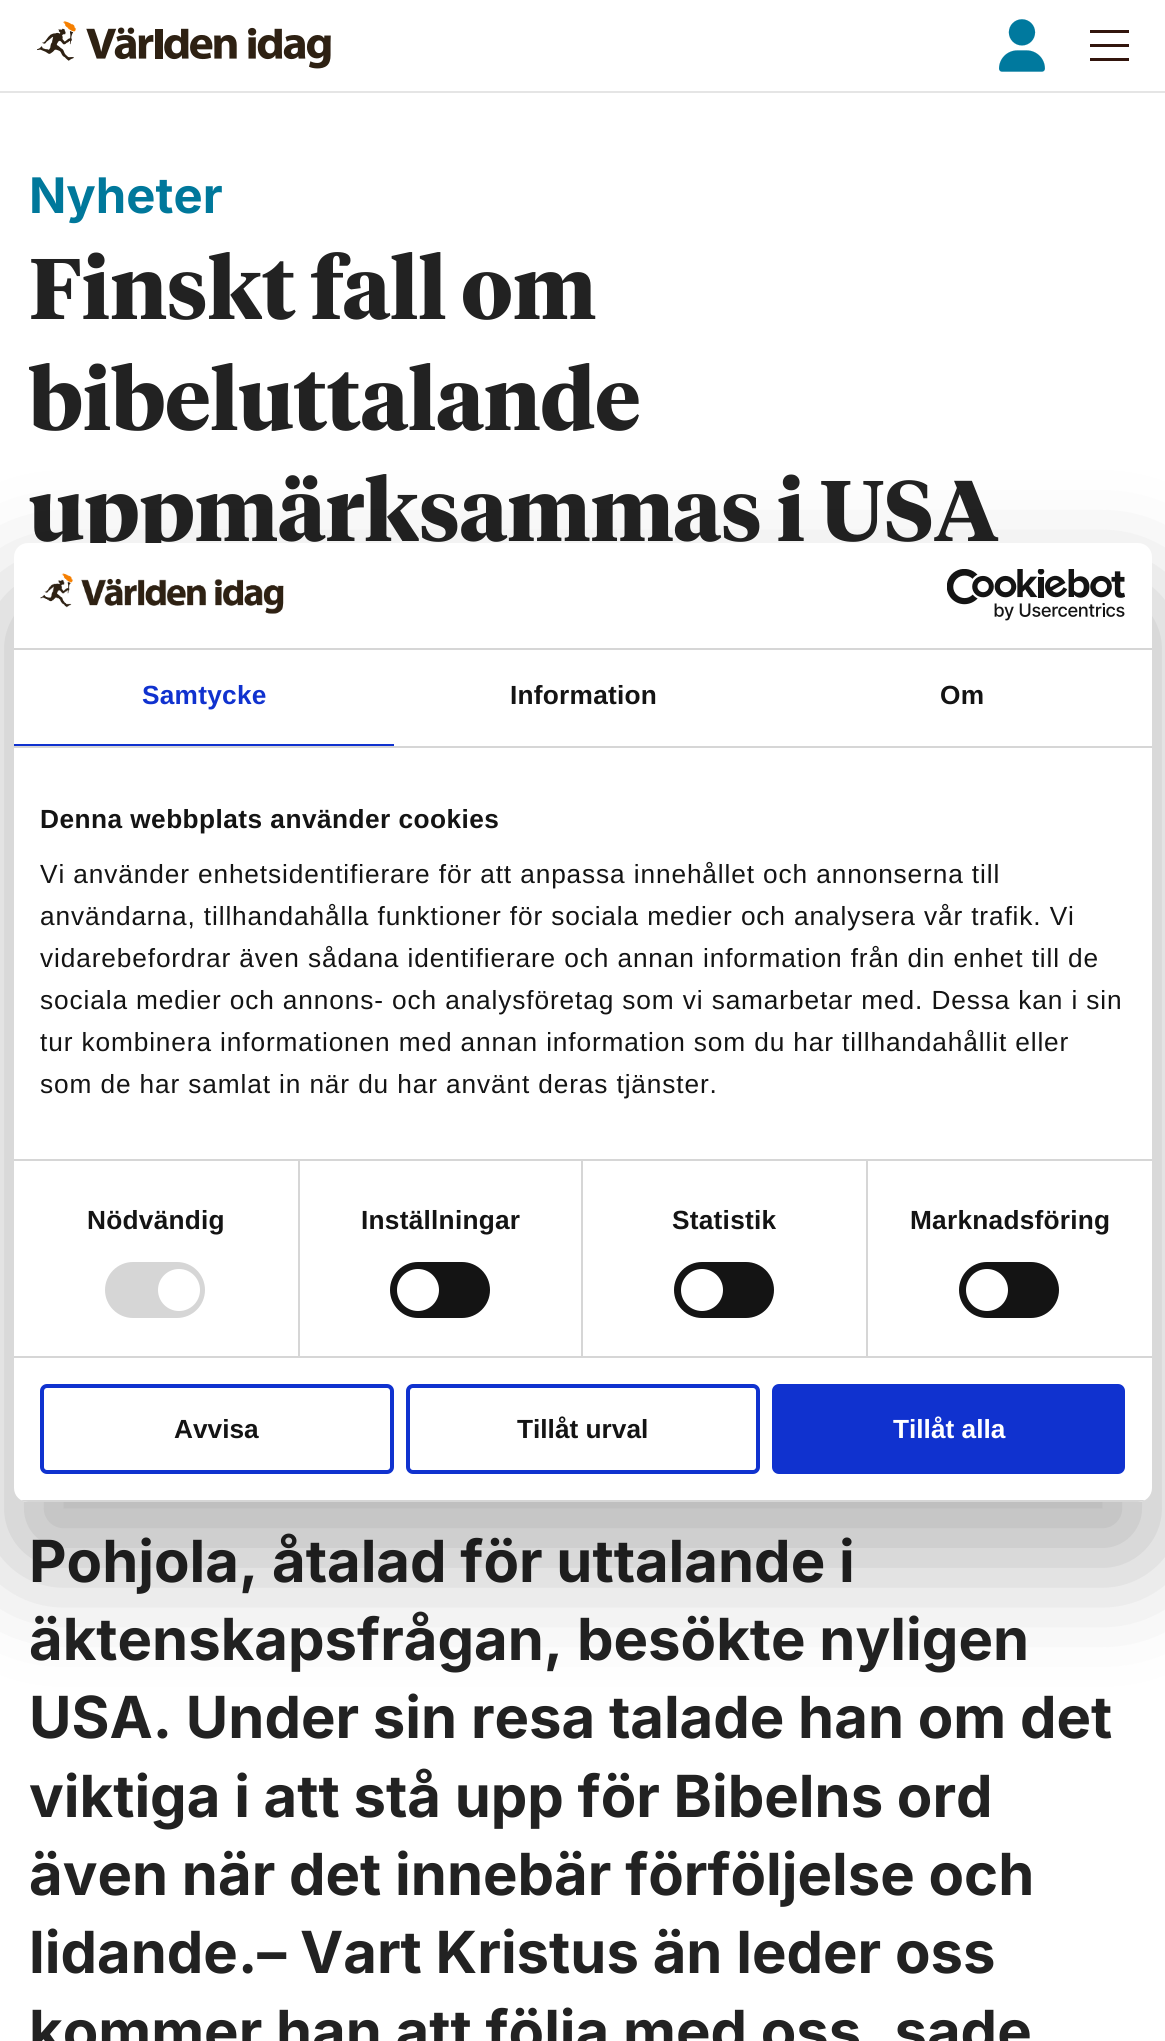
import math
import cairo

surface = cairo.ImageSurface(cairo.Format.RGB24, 1165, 2041)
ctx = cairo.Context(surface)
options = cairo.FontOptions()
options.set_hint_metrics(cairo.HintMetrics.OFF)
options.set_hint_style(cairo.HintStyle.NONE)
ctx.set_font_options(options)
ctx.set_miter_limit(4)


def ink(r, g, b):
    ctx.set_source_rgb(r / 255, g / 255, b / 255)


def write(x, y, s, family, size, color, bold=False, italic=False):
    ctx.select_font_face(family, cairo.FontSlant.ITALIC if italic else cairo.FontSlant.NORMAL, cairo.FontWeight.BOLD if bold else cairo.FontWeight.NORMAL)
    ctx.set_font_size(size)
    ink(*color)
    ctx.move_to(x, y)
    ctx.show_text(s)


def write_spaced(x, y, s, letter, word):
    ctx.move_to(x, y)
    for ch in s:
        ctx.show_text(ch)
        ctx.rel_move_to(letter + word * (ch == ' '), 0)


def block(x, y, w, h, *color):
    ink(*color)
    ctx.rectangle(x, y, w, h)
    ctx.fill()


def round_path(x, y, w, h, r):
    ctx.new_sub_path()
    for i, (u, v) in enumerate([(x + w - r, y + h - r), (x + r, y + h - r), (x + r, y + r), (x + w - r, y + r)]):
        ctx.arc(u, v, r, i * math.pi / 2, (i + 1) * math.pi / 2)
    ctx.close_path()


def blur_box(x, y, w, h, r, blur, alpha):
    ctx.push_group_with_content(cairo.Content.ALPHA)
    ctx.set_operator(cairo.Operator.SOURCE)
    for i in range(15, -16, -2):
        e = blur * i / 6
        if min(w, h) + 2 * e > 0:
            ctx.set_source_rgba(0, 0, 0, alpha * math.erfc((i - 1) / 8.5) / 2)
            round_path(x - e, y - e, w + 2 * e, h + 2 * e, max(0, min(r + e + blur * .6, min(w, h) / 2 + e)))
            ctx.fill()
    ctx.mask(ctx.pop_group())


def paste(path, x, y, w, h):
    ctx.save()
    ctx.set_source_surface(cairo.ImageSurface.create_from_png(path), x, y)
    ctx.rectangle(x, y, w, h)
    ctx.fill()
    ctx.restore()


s1 = dict(family="Inter", size=49, color=(0, 120, 155), bold=True)
s2 = dict(family="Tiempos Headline", size=85.5, color=(34, 34, 34), bold=True)
s3 = dict(family="Inter", size=58, color=(34, 34, 34), bold=True)
s4 = dict(family="Liberation Sans", size=26.25, color=(20, 20, 20), bold=True)
s5 = dict(family="Liberation Sans", size=26.25, color=(255, 255, 255), bold=True)

ink(255, 255, 255)
ctx.paint()
block(0, 91, 1165, 2, 229, 229, 229)
paste("pic1.png", 37, 21, 294, 48)
paste("pic2.png", 999, 19, 46, 53)
block(1090, 30, 39, 3, 50, 21, 13)
block(1090, 44, 39, 3, 50, 21, 13)
block(1090, 58, 39, 3, 50, 21, 13)
write(29, 213, "Nyheter", **s1)
write(29, 319, "Finskt fall om", **s2)
write(29, 430, "bibeluttalande", **s2)
write(29, 541, "uppmärksammas i USA", **s2)
write(29, 1582, "Pohjola, åtalad för uttalande i", **s3)
write(29, 1660, "äktenskapsfrågan, besökte nyligen", **s3)
write(29, 1738, "USA. Under sin resa talade han om det", **s3)
write(29, 1817, "viktiga i att stå upp för Bibelns ord", **s3)
write(29, 1895, "även när det innebär förföljelse och", **s3)
write(29, 1973, "lidande.– Vart Kristus än leder oss", **s3)
write(29, 2052, "kommer han att följa med oss, sade", **s3)
ink(0, 0, 0)
blur_box(14, 599, 1138, 959, 14, 59.5, 0.3)
ink(255, 255, 255)
round_path(14, 543, 1138, 959, 14)
ctx.fill()
block(14, 648, 1138, 2, 214, 214, 214)
paste("pic3.png", 40, 573, 244, 41)
paste("pic4.png", 947, 569, 178, 52)
block(14, 746, 1138, 2, 214, 214, 214)
block(14, 744, 380, 2, 16, 50, 207)
ctx.select_font_face("Liberation Sans", cairo.FontSlant.NORMAL, cairo.FontWeight.BOLD)
ctx.set_font_size(26.25)
write_spaced(142, 704, "Samtycke", 0.25, 0)
ink(20, 20, 20)
write_spaced(510, 704, "Information", 0.25, 0)
write_spaced(940, 704, "Om", 0.25, 0)
block(298, 1160, 2, 196, 214, 214, 214)
block(581, 1160, 2, 196, 214, 214, 214)
block(866, 1160, 2, 196, 214, 214, 214)
block(14, 1159, 1138, 2, 214, 214, 214)
ink(20, 20, 20)
write_spaced(40, 828, "Denna webbplats använder cookies", 0.45, 0)
ctx.select_font_face("Liberation Sans")
write_spaced(40, 883, "Vi använder enhetsidentifierare för att anpassa innehållet och annonserna till", 0.88, 0)
write_spaced(40, 925, "användarna, tillhandahålla funktioner för sociala medier och analysera vår trafik. Vi", 0.88, 0)
write_spaced(40, 967, "vidarebefordrar även sådana identifierare och annan information från din enhet till de", 0.88, 0)
write_spaced(40, 1009, "sociala medier och annons- och analysföretag som vi samarbetar med. Dessa kan i sin", 0.88, 0)
write_spaced(40, 1051, "tur kombinera informationen med annan information som du har tillhandahållit eller", 0.88, 0)
write_spaced(40, 1093, "som de har samlat in när du har använt deras tjänster.", 0.88, 0)
block(14, 1356, 1138, 2, 214, 214, 214)
ctx.select_font_face("Liberation Sans", cairo.FontSlant.NORMAL, cairo.FontWeight.BOLD)
ink(20, 20, 20)
write_spaced(87, 1229, "Nödvändig", 0.25, 0)
ink(214, 214, 214)
round_path(105, 1262, 100, 56, 28)
ctx.fill()
ink(255, 255, 255)
ctx.arc(179, 1290, 21, 0, 2 * math.pi)
ctx.fill()
ink(20, 20, 20)
write_spaced(361, 1229, "Inställningar", 0.25, 0)
round_path(390, 1262, 100, 56, 28)
ctx.fill()
ink(255, 255, 255)
ctx.arc(418, 1290, 21, 0, 2 * math.pi)
ctx.fill()
ink(20, 20, 20)
write_spaced(672, 1229, "Statistik", 0.25, 0)
round_path(674, 1262, 100, 56, 28)
ctx.fill()
ink(255, 255, 255)
ctx.arc(702, 1290, 21, 0, 2 * math.pi)
ctx.fill()
ink(20, 20, 20)
write_spaced(910, 1229, "Marknadsföring", 0.25, 0)
round_path(959, 1262, 100, 56, 28)
ctx.fill()
ink(255, 255, 255)
ctx.arc(987, 1290, 21, 0, 2 * math.pi)
ctx.fill()
ctx.save()
round_path(14, 543, 1138, 959, 14)
ctx.clip()
block(14, 1500, 1138, 2, 214, 214, 214)
ctx.restore()
round_path(42, 1386, 350, 86, 5)
ink(16, 50, 207)
ctx.set_line_width(4)
ctx.stroke()
write(174, 1438, "Avvisa", **s4)
round_path(408, 1386, 350, 86, 5)
ink(16, 50, 207)
ctx.stroke()
write(517, 1438, "Tillåt urval", **s4)
ink(16, 50, 207)
round_path(774, 1386, 349, 86, 5)
ctx.fill_preserve()
ctx.stroke()
write(893, 1438, "Tillåt alla", **s5)
surface.write_to_png("screenshot.png")
